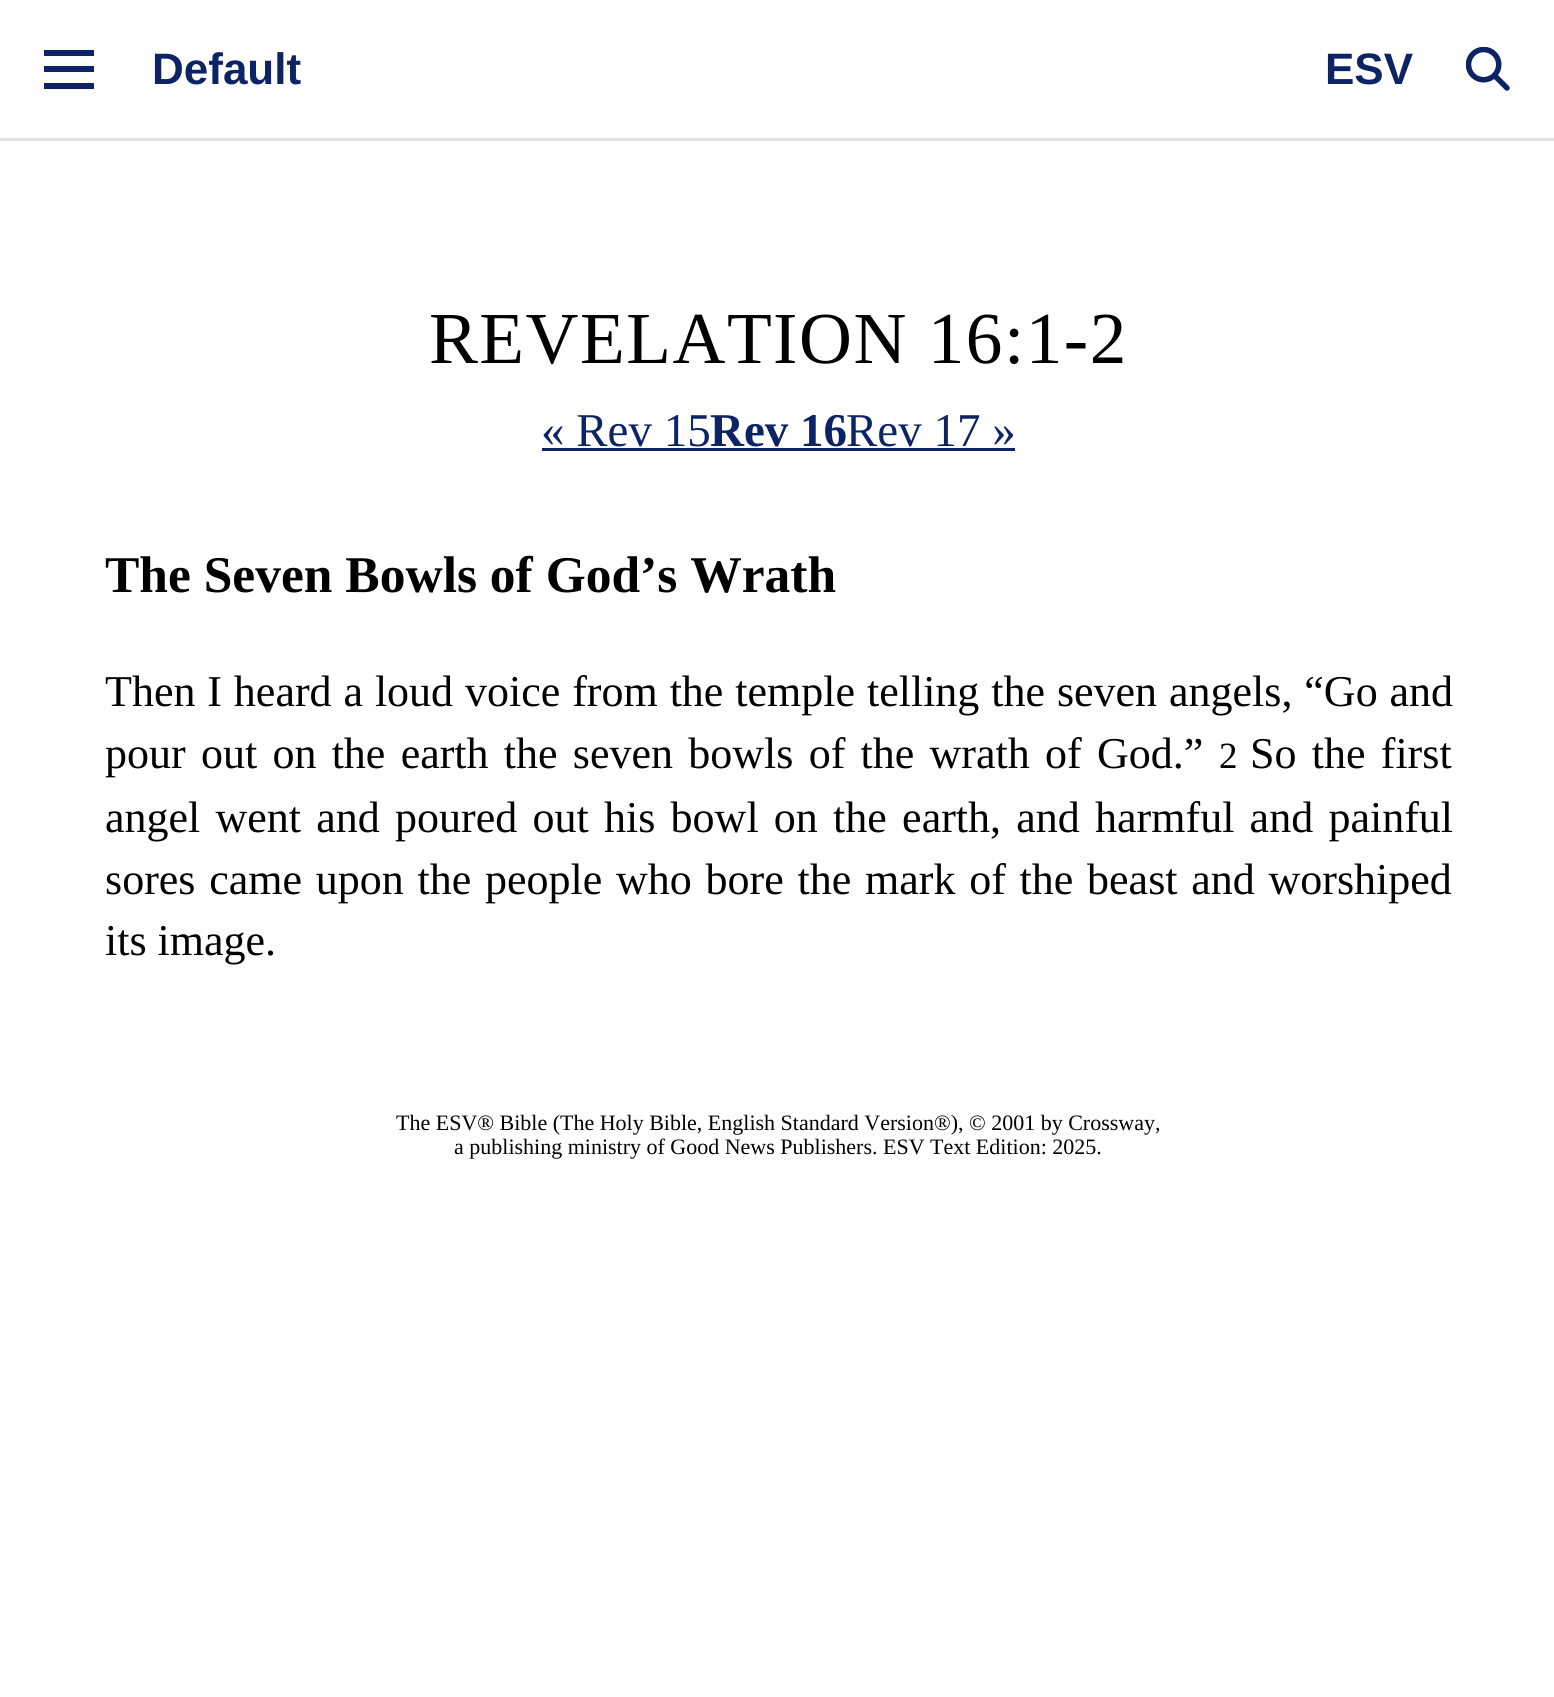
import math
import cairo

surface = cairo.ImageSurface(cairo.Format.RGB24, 1554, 1697)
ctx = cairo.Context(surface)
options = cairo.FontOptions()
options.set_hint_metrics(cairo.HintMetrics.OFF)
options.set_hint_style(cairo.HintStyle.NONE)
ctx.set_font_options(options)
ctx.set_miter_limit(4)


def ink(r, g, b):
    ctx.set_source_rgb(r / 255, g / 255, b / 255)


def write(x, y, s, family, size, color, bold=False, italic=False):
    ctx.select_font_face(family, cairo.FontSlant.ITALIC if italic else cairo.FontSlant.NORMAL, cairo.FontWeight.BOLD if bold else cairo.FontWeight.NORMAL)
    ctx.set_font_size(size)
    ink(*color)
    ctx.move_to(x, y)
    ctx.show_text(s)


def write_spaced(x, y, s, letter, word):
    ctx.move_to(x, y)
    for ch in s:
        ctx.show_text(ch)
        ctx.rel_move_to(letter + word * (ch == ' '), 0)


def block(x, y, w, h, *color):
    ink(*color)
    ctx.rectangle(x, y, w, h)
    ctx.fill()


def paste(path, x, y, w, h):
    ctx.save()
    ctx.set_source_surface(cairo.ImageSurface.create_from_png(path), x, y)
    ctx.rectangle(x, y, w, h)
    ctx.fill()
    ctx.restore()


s1 = dict(family="Liberation Sans", size=44, color=(12, 35, 101), bold=True)
s2 = dict(family="Liberation Serif", size=47, color=(12, 35, 101))
s3 = dict(family="Liberation Serif", size=47, color=(12, 35, 101), bold=True)
s4 = dict(family="Liberation Serif", size=51.5, color=(0, 0, 0), bold=True)
s5 = dict(family="Liberation Serif", size=37, color=(0, 0, 0))
s6 = dict(family="Liberation Serif", size=44, color=(0, 0, 0))
s7 = dict(family="Liberation Serif", size=22, color=(0, 0, 0))

ink(255, 255, 255)
ctx.paint()
block(44, 50, 50, 6, 12, 35, 101)
block(44, 66, 50, 6, 12, 35, 101)
block(44, 83, 50, 6, 12, 35, 101)
block(0, 138, 1554, 3, 227, 227, 227)
write(152, 84, "Default", **s1)
write(1325, 84, "ESV", **s1)
paste("pic1.png", 1466, 47, 44, 44)
ctx.select_font_face("Liberation Serif")
ctx.set_font_size(73.25)
ink(0, 0, 0)
write_spaced(429, 363, "REVELATION 16:1-2", 1.5, 0)
write(541, 446, "« Rev 15", **s2)
block(542, 448, 473, 3, 12, 35, 101)
write(710, 446, "Rev 16", **s3)
write(846, 446, "Rev 17 »", **s2)
write(105, 592, "The Seven Bowls of God’s Wrath", **s4)
ctx.select_font_face("Liberation Serif")
ctx.set_font_size(44)
write_spaced(105, 706, "Then I heard a loud voice from the temple telling the seven angels, “Go and", 0, 0.9)
write_spaced(105, 768, "pour out on the earth the seven bowls of the wrath of God.”", 0, 4.25)
write(1219, 768, "2", **s5)
ctx.set_font_size(44)
write_spaced(1250, 768, "So the first", 0, 4.25)
write_spaced(105, 832, "angel went and poured out his bowl on the earth, and harmful and painful", 0, 4.25)
write_spaced(105, 894, "sores came upon the people who bore the mark of the beast and worshiped", 0, 2.75)
write(105, 955, "its image.", **s6)
write(396, 1130, "The ESV® Bible (The Holy Bible, English Standard Version®), © 2001 by Crossway,", **s7)
write(454, 1154, "a publishing ministry of Good News Publishers. ESV Text Edition: 2025.", **s7)
surface.write_to_png("screenshot.png")
